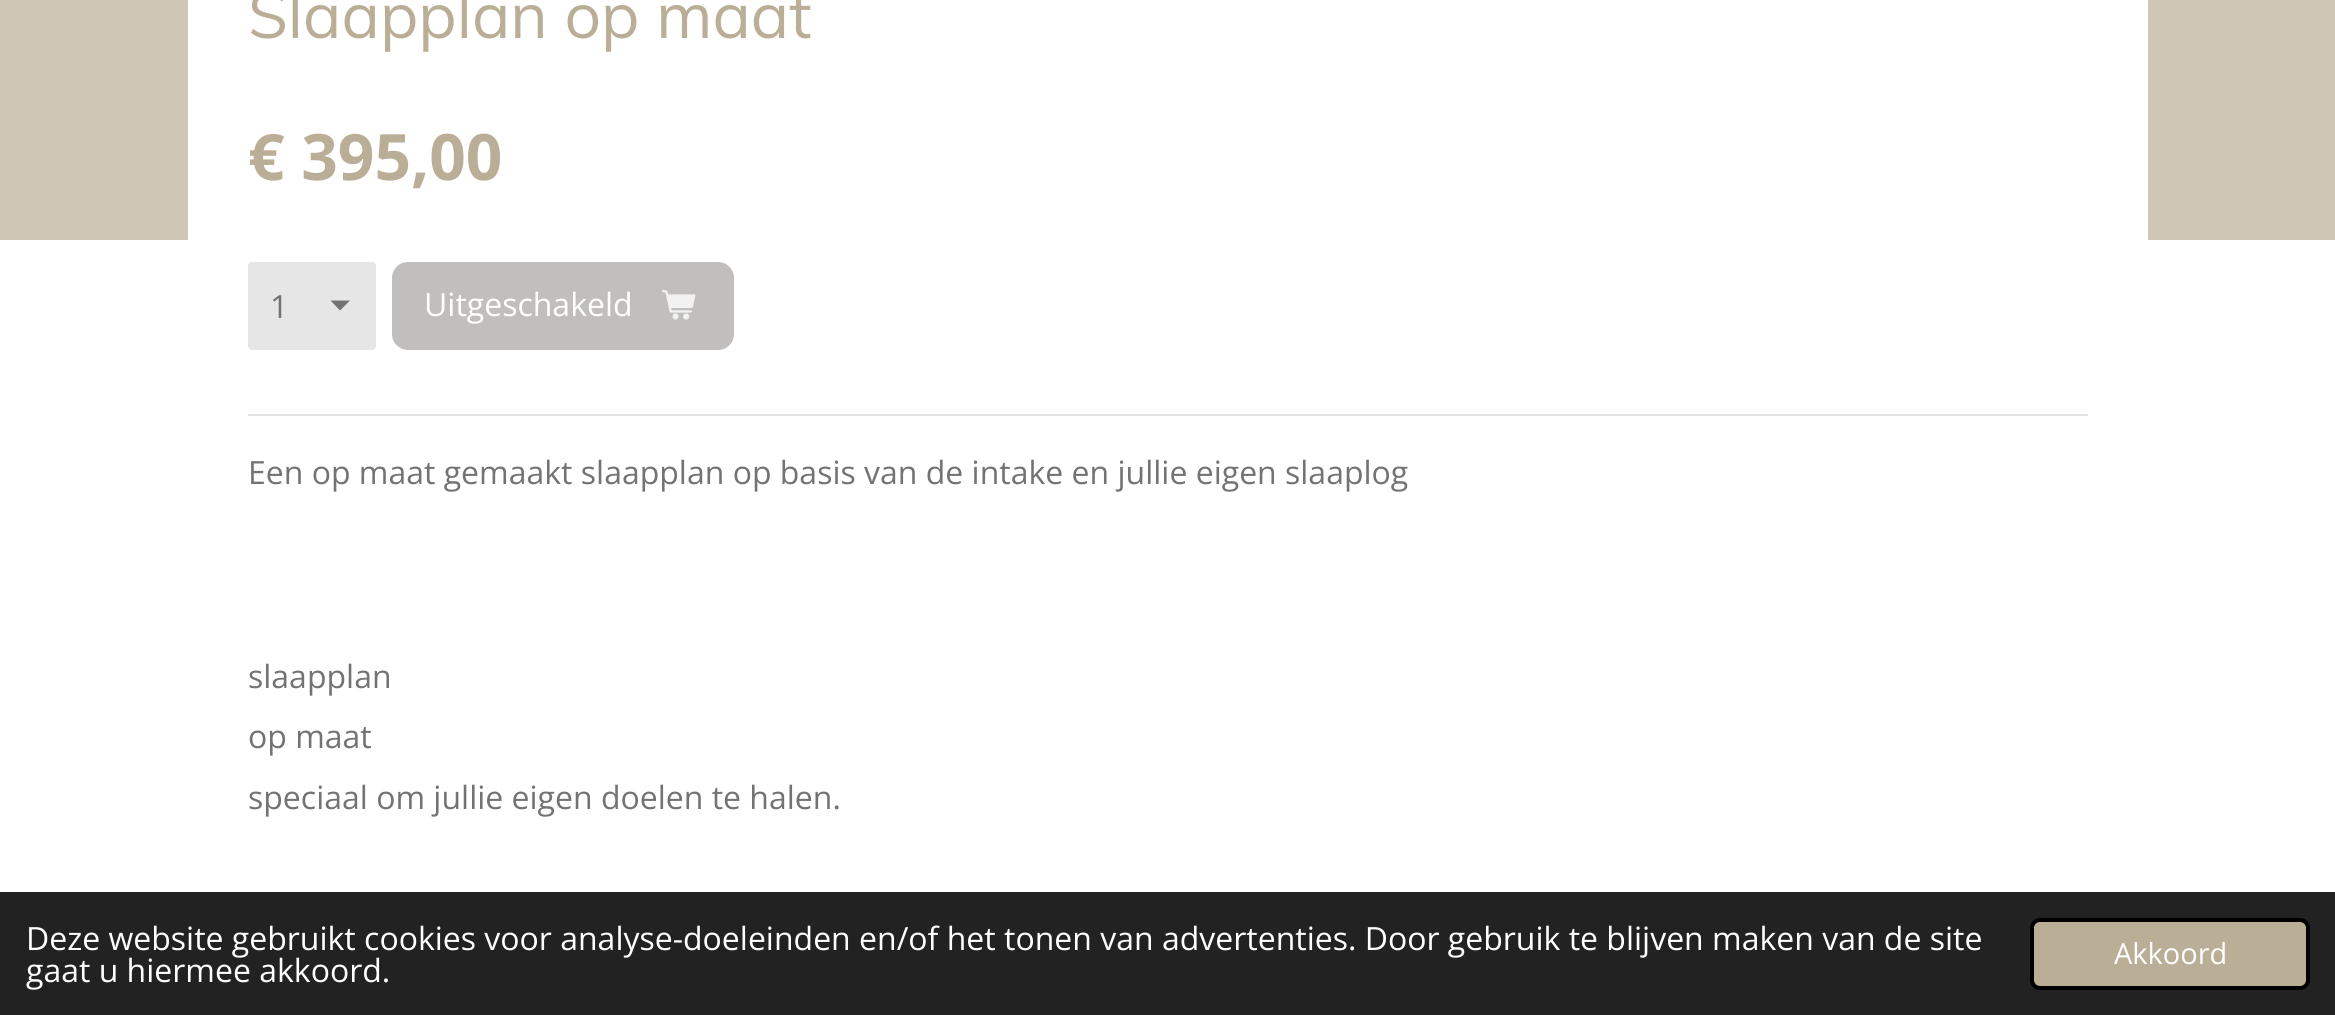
import math
import cairo

surface = cairo.ImageSurface(cairo.Format.RGB24, 2335, 1015)
ctx = cairo.Context(surface)
options = cairo.FontOptions()
options.set_hint_metrics(cairo.HintMetrics.OFF)
options.set_hint_style(cairo.HintStyle.NONE)
ctx.set_font_options(options)
ctx.set_miter_limit(4)


def ink(r, g, b):
    ctx.set_source_rgb(r / 255, g / 255, b / 255)


def write(x, y, s, family, size, color, bold=False, italic=False):
    ctx.select_font_face(family, cairo.FontSlant.ITALIC if italic else cairo.FontSlant.NORMAL, cairo.FontWeight.BOLD if bold else cairo.FontWeight.NORMAL)
    ctx.set_font_size(size)
    ink(*color)
    ctx.move_to(x, y)
    ctx.show_text(s)


def block(x, y, w, h, *color):
    ink(*color)
    ctx.rectangle(x, y, w, h)
    ctx.fill()


def round_path(x, y, w, h, r):
    ctx.new_sub_path()
    for i, (u, v) in enumerate([(x + w - r, y + h - r), (x + r, y + h - r), (x + r, y + r), (x + w - r, y + r)]):
        ctx.arc(u, v, r, i * math.pi / 2, (i + 1) * math.pi / 2)
    ctx.close_path()


def paste(path, x, y, w, h):
    ctx.save()
    ctx.set_source_surface(cairo.ImageSurface.create_from_png(path), x, y)
    ctx.rectangle(x, y, w, h)
    ctx.fill()
    ctx.restore()


s1 = dict(family="Muli", size=64, color=(187, 174, 151))
s2 = dict(family="Open Sans", size=64, color=(187, 174, 151), bold=True)
s3 = dict(family="Open Sans", size=32, color=(115, 115, 115))
s4 = dict(family="Open Sans", size=32, color=(255, 255, 255))
s5 = dict(family="Open Sans", size=29, color=(255, 255, 255))

ink(255, 255, 255)
ctx.paint()
block(0, 0, 2335, 240, 207, 198, 182)
block(188, 0, 1960, 240, 255, 255, 255)
write(248, 38, "Slaapplan op maat", **s1)
write(248, 180, "€ 395,00", **s2)
ink(230, 230, 230)
round_path(248, 262, 128, 88, 4)
ctx.fill()
ink(115, 115, 115)
ctx.new_path()
ctx.move_to(340, 310.5)
ctx.line_to(330.5, 300.5)
ctx.line_to(350, 300.5)
ctx.close_path()
ctx.fill()
write(270, 318, "1", **s3)
ink(192, 191, 189)
round_path(392, 262, 342, 88, 16)
ctx.fill()
write(424, 316, "Uitgeschakeld", **s4)
paste("pic1.png", 662, 289, 34, 31)
block(248, 414, 1840, 2, 227, 227, 227)
write(248, 484, "Een op maat gemaakt slaapplan op basis van de intake en jullie eigen slaaplog", **s3)
write(248, 688, "slaapplan", **s3)
write(248, 748, "op maat", **s3)
write(248, 809, "speciaal om jullie eigen doelen te halen.", **s3)
block(0, 892, 2335, 123, 34, 34, 34)
write(26, 950, "Deze website gebruikt cookies voor analyse-doeleinden en/of het tonen van advertenties. Door gebruik te blijven maken van de site", **s4)
write(26, 982, "gaat u hiermee akkoord.", **s4)
ink(187, 174, 151)
round_path(2032, 920, 276, 68, 8)
ctx.fill_preserve()
ink(0, 0, 0)
ctx.set_line_width(4)
ctx.stroke()
write(2114, 964, "Akkoord", **s5)
surface.write_to_png("screenshot.png")
